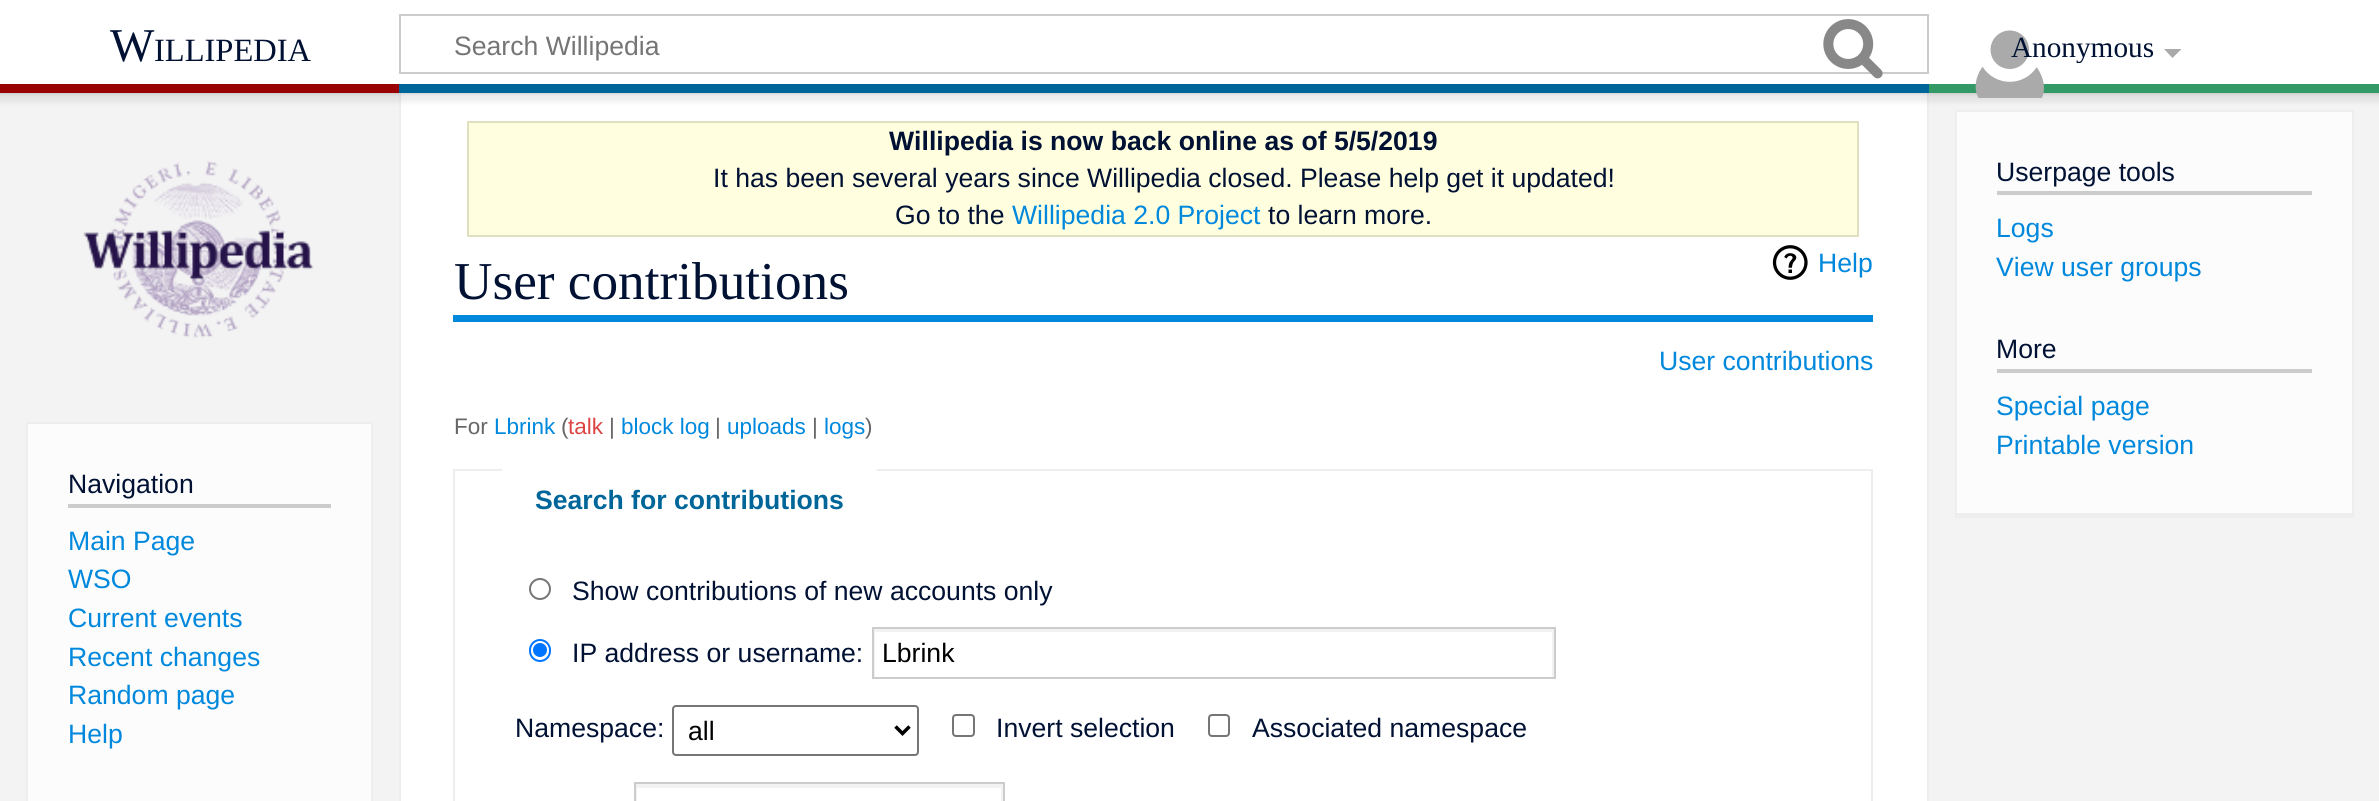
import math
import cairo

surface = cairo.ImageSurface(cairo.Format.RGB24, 2379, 801)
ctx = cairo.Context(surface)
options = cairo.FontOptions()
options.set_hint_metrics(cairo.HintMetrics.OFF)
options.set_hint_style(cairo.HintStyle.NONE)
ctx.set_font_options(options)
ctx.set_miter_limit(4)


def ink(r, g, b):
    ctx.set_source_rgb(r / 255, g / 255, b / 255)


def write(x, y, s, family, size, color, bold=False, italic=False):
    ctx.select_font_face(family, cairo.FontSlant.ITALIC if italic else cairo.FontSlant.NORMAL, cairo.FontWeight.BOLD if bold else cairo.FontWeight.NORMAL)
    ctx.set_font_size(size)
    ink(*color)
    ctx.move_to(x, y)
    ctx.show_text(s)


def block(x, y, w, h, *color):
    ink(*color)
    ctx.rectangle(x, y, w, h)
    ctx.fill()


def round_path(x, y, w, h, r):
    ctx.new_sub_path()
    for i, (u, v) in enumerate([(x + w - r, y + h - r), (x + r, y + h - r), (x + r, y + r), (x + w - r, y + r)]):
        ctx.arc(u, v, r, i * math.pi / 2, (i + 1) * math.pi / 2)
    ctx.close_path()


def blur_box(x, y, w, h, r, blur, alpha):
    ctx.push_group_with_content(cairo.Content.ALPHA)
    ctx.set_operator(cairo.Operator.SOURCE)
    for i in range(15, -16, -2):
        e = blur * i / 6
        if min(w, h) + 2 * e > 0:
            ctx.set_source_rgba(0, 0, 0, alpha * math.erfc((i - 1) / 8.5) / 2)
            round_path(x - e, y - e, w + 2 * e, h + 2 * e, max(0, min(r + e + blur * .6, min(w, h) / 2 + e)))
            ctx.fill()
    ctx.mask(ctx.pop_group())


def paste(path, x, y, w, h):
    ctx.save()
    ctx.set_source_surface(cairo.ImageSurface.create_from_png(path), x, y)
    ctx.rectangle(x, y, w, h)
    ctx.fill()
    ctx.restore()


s1 = dict(family="Liberation Serif", size=47, color=(0, 17, 51))
s2 = dict(family="Liberation Serif", size=32.5, color=(0, 17, 51))
s3 = dict(family="Liberation Sans", size=26.6, color=(117, 117, 117))
s4 = dict(family="Liberation Serif", size=29.25, color=(0, 17, 51))
s5 = dict(family="Liberation Sans", size=26.6, color=(0, 17, 51), bold=True)
s6 = dict(family="Liberation Sans", size=26.6, color=(0, 17, 51))
s7 = dict(family="Liberation Sans", size=26.6, color=(0, 136, 221))
s8 = dict(family="Liberation Serif", size=53.25, color=(0, 17, 51))
s9 = dict(family="Liberation Sans", size=22.5, color=(102, 102, 102))
s10 = dict(family="Liberation Sans", size=22.5, color=(0, 136, 221))
s11 = dict(family="Liberation Sans", size=22.5, color=(221, 68, 68))
s12 = dict(family="Liberation Sans", size=26.6, color=(0, 102, 153), bold=True)
s13 = dict(family="Liberation Sans", size=26.6, color=(0, 0, 0))

ink(243, 243, 243)
ctx.paint()
block(401, 93, 1526, 708, 255, 255, 255)
block(1927, 93, 2, 708, 238, 238, 238)
block(399, 93, 2, 708, 238, 238, 238)
ink(0, 0, 0)
blur_box(0, 84, 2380, 9, 0, 2, 0.2)
block(1955, 110, 399, 2, 238, 238, 238)
block(2352, 110, 2, 408, 238, 238, 238)
block(1955, 513, 399, 5, 238, 238, 238)
block(1955, 110, 2, 408, 238, 238, 238)
ink(0, 0, 0)
blur_box(-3, 86, 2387, 16, 0, 2.5, 0.07)
block(0, 0, 2379, 84, 255, 255, 255)
write(110, 61, "W", **s1)
write(154, 61, "ILLIPEDIA", **s2)
ctx.rectangle(400, 15, 1528, 58)
ink(204, 204, 204)
ctx.stroke()
write(454, 55, "Search Willipedia", **s3)
paste("pic1.png", 1823, 19, 60, 60)
block(1929, 84, 450, 9, 51, 153, 102)
paste("pic2.png", 1975, 30, 69, 68)
ctx.save()
ctx.rectangle(2011, 33, 143, 30)
ctx.clip()
write(2011, 57, "Anonymous", **s4)
ctx.restore()
ink(170, 170, 170)
ctx.new_path()
ctx.move_to(2181.5, 49)
ctx.line_to(2172.5, 58)
ctx.line_to(2164, 49)
ctx.close_path()
ctx.fill()
block(0, 84, 399, 9, 153, 0, 0)
block(399, 84, 1530, 9, 0, 102, 153)
block(469, 123, 1388, 112, 255, 255, 224)
block(467, 121, 1392, 2, 224, 224, 192)
block(1857, 121, 2, 115, 224, 224, 192)
block(467, 235, 1392, 2, 224, 224, 192)
block(467, 121, 2, 115, 224, 224, 192)
write(889, 150, "Willipedia is now back online as of 5/5/2019", **s5)
write(713, 187, "It has been several years since Willipedia closed. Please help get it updated!", **s6)
write(895, 224, "Go to the", **s6)
write(1012, 224, "Willipedia 2.0 Project", **s7)
write(1268, 224, "to learn more.", **s6)
block(453, 315, 1420, 7, 0, 136, 221)
write(454, 299, "User contributions", **s8)
paste("pic3.png", 1772, 245, 36, 35)
write(1818, 272, "Help", **s7)
write(1659, 370, "User contributions", **s7)
write(454, 434, "For", **s9)
write(494, 434, "Lbrink", **s10)
write(561, 434, "(", **s9)
write(568, 434, "talk", **s11)
write(609, 434, "|", **s9)
write(621, 434, "block log", **s10)
write(715, 434, "|", **s9)
write(727, 434, "uploads", **s10)
write(812, 434, "|", **s9)
write(824, 434, "logs", **s10)
write(865, 434, ")", **s9)
block(453, 469, 1420, 2, 238, 238, 238)
block(1871, 469, 2, 332, 238, 238, 238)
block(453, 469, 2, 332, 238, 238, 238)
block(502, 469, 375, 2, 255, 255, 255)
write(535, 509, "Search for contributions", **s12)
ctx.new_path()
ctx.arc(540, 589, 10, 0, 2 * math.pi)
ink(118, 118, 118)
ctx.stroke()
write(572, 600, "Show contributions of new accounts only", **s6)
round_path(530, 640, 20, 21, 10)
ink(0, 117, 255)
ctx.stroke()
ctx.arc(540, 650, 7, 0, 2 * math.pi)
ctx.fill()
write(572, 662, "IP address or username:", **s6)
ctx.save()
ctx.rectangle(873, 628, 681, 49)
ctx.clip()
ink(242, 242, 242)
ctx.set_fill_rule(cairo.FillRule.EVEN_ODD)
ctx.new_path()
ctx.move_to(700, 455)
ctx.line_to(1727, 455)
ctx.line_to(1727, 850)
ctx.line_to(700, 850)
ctx.close_path()
ctx.move_to(875, 632)
ctx.line_to(1552, 632)
ctx.line_to(1552, 677)
ctx.line_to(875, 677)
ctx.close_path()
ctx.fill()
ctx.restore()
ctx.rectangle(873, 628, 682, 50)
ink(204, 204, 204)
ctx.stroke()
write(882, 662, "Lbrink", **s13)
write(515, 737, "Namespace:", **s6)
round_path(673, 706, 245, 49, 3)
ink(118, 118, 118)
ctx.stroke()
ctx.new_path()
ctx.move_to(895.5, 726.5)
ctx.line_to(902.5, 733.5)
ctx.line_to(909.5, 726.5)
ink(0, 0, 0)
ctx.set_line_width(3.5)
ctx.stroke()
write(688, 740, "all", **s13)
round_path(953, 715, 21, 21, 3)
ink(118, 118, 118)
ctx.set_line_width(2)
ctx.stroke()
write(996, 737, "Invert selection", **s6)
round_path(1209, 715, 20, 21, 3)
ink(118, 118, 118)
ctx.stroke()
write(1252, 737, "Associated namespace", **s6)
ctx.save()
ctx.rectangle(635, 784, 368, 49)
ctx.clip()
ink(242, 242, 242)
ctx.set_fill_rule(cairo.FillRule.EVEN_ODD)
ctx.new_path()
ctx.move_to(462, 611)
ctx.line_to(1176, 611)
ctx.line_to(1176, 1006)
ctx.line_to(462, 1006)
ctx.close_path()
ctx.move_to(637, 788)
ctx.line_to(1001, 788)
ctx.line_to(1001, 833)
ctx.line_to(637, 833)
ctx.close_path()
ctx.fill()
ctx.restore()
ctx.rectangle(635, 783, 369, 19)
ink(204, 204, 204)
ctx.stroke()
block(1957, 112, 395, 401, 252, 252, 252)
block(1997, 191, 315, 4, 204, 204, 204)
write(1996, 181, "Userpage tools", **s6)
write(1996, 237, "Logs", **s7)
write(1996, 276, "View user groups", **s7)
block(1997, 369, 315, 4, 204, 204, 204)
write(1996, 358, "More", **s6)
write(1996, 415, "Special page", **s7)
write(1996, 454, "Printable version", **s7)
paste("pic4.png", 83, 161, 231, 177)
block(28, 424, 343, 377, 252, 252, 252)
block(26, 422, 347, 2, 238, 238, 238)
block(371, 422, 2, 379, 238, 238, 238)
block(26, 422, 2, 379, 238, 238, 238)
block(68, 504, 263, 4, 204, 204, 204)
write(68, 493, "Navigation", **s6)
write(68, 550, "Main Page", **s7)
write(68, 588, "WSO", **s7)
write(68, 627, "Current events", **s7)
write(68, 666, "Recent changes", **s7)
write(68, 704, "Random page", **s7)
write(68, 743, "Help", **s7)
surface.write_to_png("screenshot.png")
